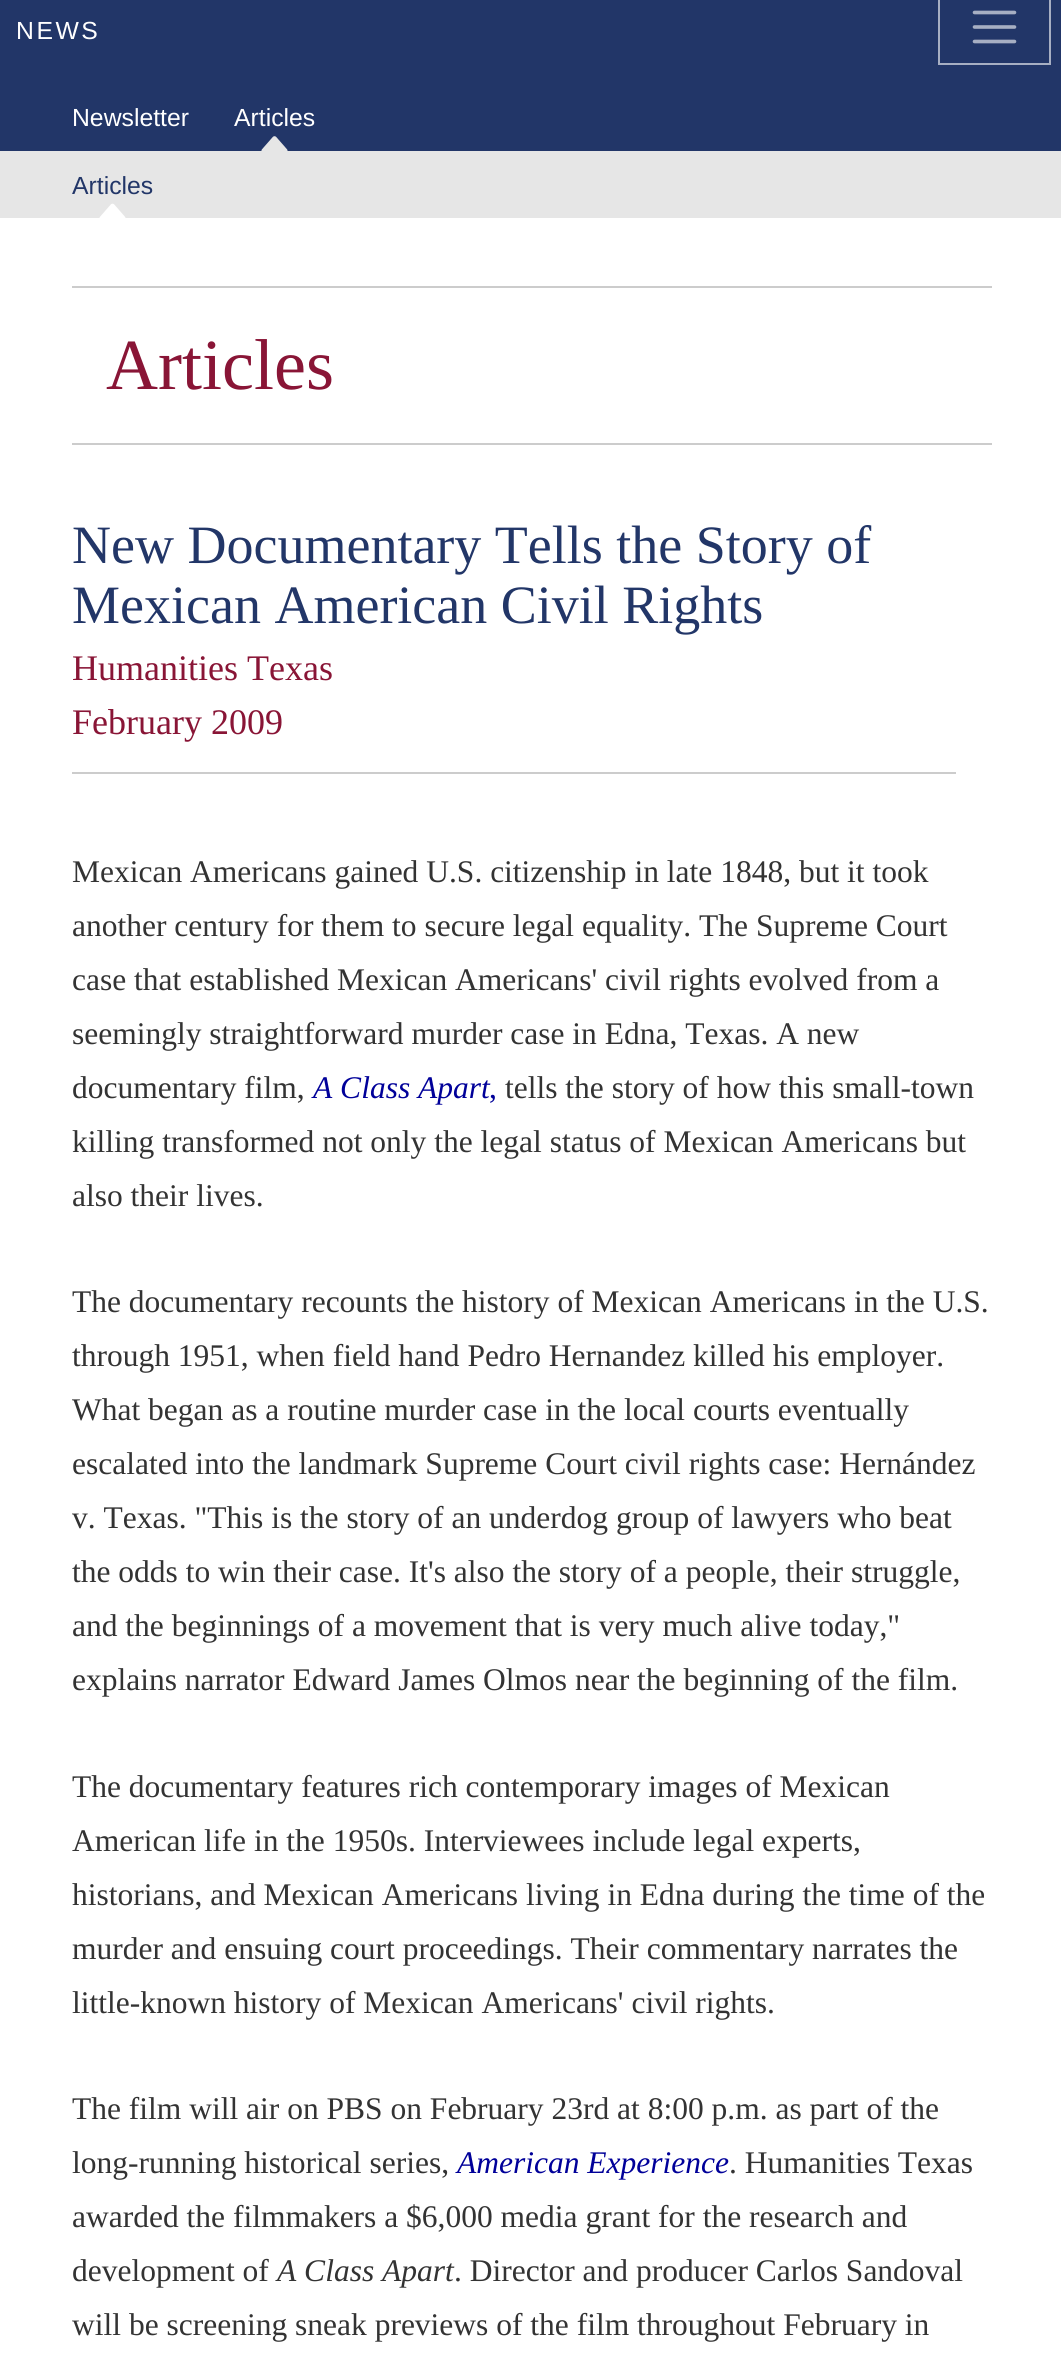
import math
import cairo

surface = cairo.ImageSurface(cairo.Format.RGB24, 1061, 2375)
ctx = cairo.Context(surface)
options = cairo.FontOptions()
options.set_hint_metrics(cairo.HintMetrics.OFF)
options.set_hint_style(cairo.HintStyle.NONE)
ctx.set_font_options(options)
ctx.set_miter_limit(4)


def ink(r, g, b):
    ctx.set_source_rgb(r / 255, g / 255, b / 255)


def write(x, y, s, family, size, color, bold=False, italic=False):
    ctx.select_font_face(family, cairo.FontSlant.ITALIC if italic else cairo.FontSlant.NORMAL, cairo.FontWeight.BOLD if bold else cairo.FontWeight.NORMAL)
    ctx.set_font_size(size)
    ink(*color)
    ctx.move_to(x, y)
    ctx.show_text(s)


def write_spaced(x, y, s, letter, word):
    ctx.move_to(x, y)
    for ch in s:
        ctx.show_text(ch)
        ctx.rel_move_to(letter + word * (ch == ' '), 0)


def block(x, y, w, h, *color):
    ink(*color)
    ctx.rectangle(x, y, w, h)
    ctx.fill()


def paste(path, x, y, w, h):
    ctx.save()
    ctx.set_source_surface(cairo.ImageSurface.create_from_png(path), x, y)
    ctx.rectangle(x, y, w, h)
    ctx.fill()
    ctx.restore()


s1 = dict(family="Liberation Sans", size=24.75, color=(255, 255, 255))
s2 = dict(family="Liberation Sans", size=24.75, color=(34, 54, 104))
s3 = dict(family="Liberation Serif", size=72, color=(137, 21, 54))
s4 = dict(family="Liberation Serif", size=54, color=(34, 54, 104))
s5 = dict(family="Liberation Serif", size=36, color=(137, 21, 54))
s6 = dict(family="Liberation Serif", size=31.5, color=(51, 51, 51))
s7 = dict(family="Liberation Serif", size=31.5, color=(0, 0, 153), italic=True)
s8 = dict(family="Liberation Serif", size=31.5, color=(0, 0, 153))
s9 = dict(family="Liberation Serif", size=31.5, color=(51, 51, 51), italic=True)

ink(34, 54, 104)
ctx.paint()
ctx.select_font_face("Liberation Sans")
ctx.set_font_size(24.75)
ink(255, 255, 255)
write_spaced(16, 39, "NEWS", 2.5, 0)
ctx.rectangle(939, -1, 111, 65)
ink(167, 175, 195)
ctx.stroke()
ctx.new_path()
ctx.move_to(974.5, 12.5)
ctx.line_to(1014.5, 12.5)
ctx.move_to(974.5, 27)
ctx.line_to(1014.5, 27)
ctx.move_to(974.5, 41.5)
ctx.line_to(1014.5, 41.5)
ctx.set_line_width(3.6)
ctx.set_line_cap(cairo.LineCap.ROUND)
ctx.stroke()
write(72, 126, "Newsletter", **s1)
write(234, 126, "Articles", **s1)
paste("pic1.png", 261, 136, 27, 15)
block(0, 151, 1061, 67, 230, 230, 230)
write(72, 194, "Articles", **s2)
paste("pic2.png", 99, 203, 27, 15)
block(0, 218, 1061, 2157, 255, 255, 255)
block(72, 286, 920, 2, 204, 204, 204)
block(72, 443, 920, 2, 204, 204, 204)
write(106, 389, "Articles", **s3)
write(72, 563, "New Documentary Tells the Story of", **s4)
write(72, 623, "Mexican American Civil Rights", **s4)
write(72, 680, "Humanities Texas", **s5)
write(72, 734, "February 2009", **s5)
block(72, 772, 884, 2, 204, 204, 204)
write(72, 882, "Mexican Americans gained U.S. citizenship in late 1848, but it took", **s6)
write(72, 936, "another century for them to secure legal equality. The Supreme Court", **s6)
write(72, 990, "case that established Mexican Americans' civil rights evolved from a", **s6)
write(72, 1044, "seemingly straightforward murder case in Edna, Texas. A new", **s6)
write(72, 1098, "documentary film,", **s6)
write(313, 1098, "A Class Apart", **s7)
write(489, 1098, ",", **s8)
write(505, 1098, "tells the story of how this small-town", **s6)
write(72, 1152, "killing transformed not only the legal status of Mexican Americans but", **s6)
write(72, 1206, "also their lives.", **s6)
write(72, 1312, "The documentary recounts the history of Mexican Americans in the U.S.", **s6)
write(72, 1366, "through 1951, when field hand Pedro Hernandez killed his employer.", **s6)
write(72, 1420, "What began as a routine murder case in the local courts eventually", **s6)
write(72, 1474, "escalated into the landmark Supreme Court civil rights case: Hernández", **s6)
write(72, 1528, "v. Texas. \"This is the story of an underdog group of lawyers who beat", **s6)
write(72, 1582, "the odds to win their case. It's also the story of a people, their struggle,", **s6)
write(72, 1636, "and the beginnings of a movement that is very much alive today,\"", **s6)
write(72, 1690, "explains narrator Edward James Olmos near the beginning of the film.", **s6)
write(72, 1797, "The documentary features rich contemporary images of Mexican", **s6)
write(72, 1851, "American life in the 1950s. Interviewees include legal experts,", **s6)
write(72, 1905, "historians, and Mexican Americans living in Edna during the time of the", **s6)
write(72, 1959, "murder and ensuing court proceedings. Their commentary narrates the", **s6)
write(72, 2013, "little-known history of Mexican Americans' civil rights.", **s6)
write(72, 2119, "The film will air on PBS on February 23rd at 8:00 p.m. as part of the", **s6)
write(72, 2173, "long-running historical series,", **s6)
write(457, 2173, "American Experience", **s7)
write(729, 2173, ". Humanities Texas", **s6)
write(72, 2227, "awarded the filmmakers a $6,000 media grant for the research and", **s6)
write(72, 2281, "development of", **s6)
write(277, 2281, "A Class Apart", **s9)
write(454, 2281, ". Director and producer Carlos Sandoval", **s6)
write(72, 2335, "will be screening sneak previews of the film throughout February in", **s6)
surface.write_to_png("screenshot.png")
